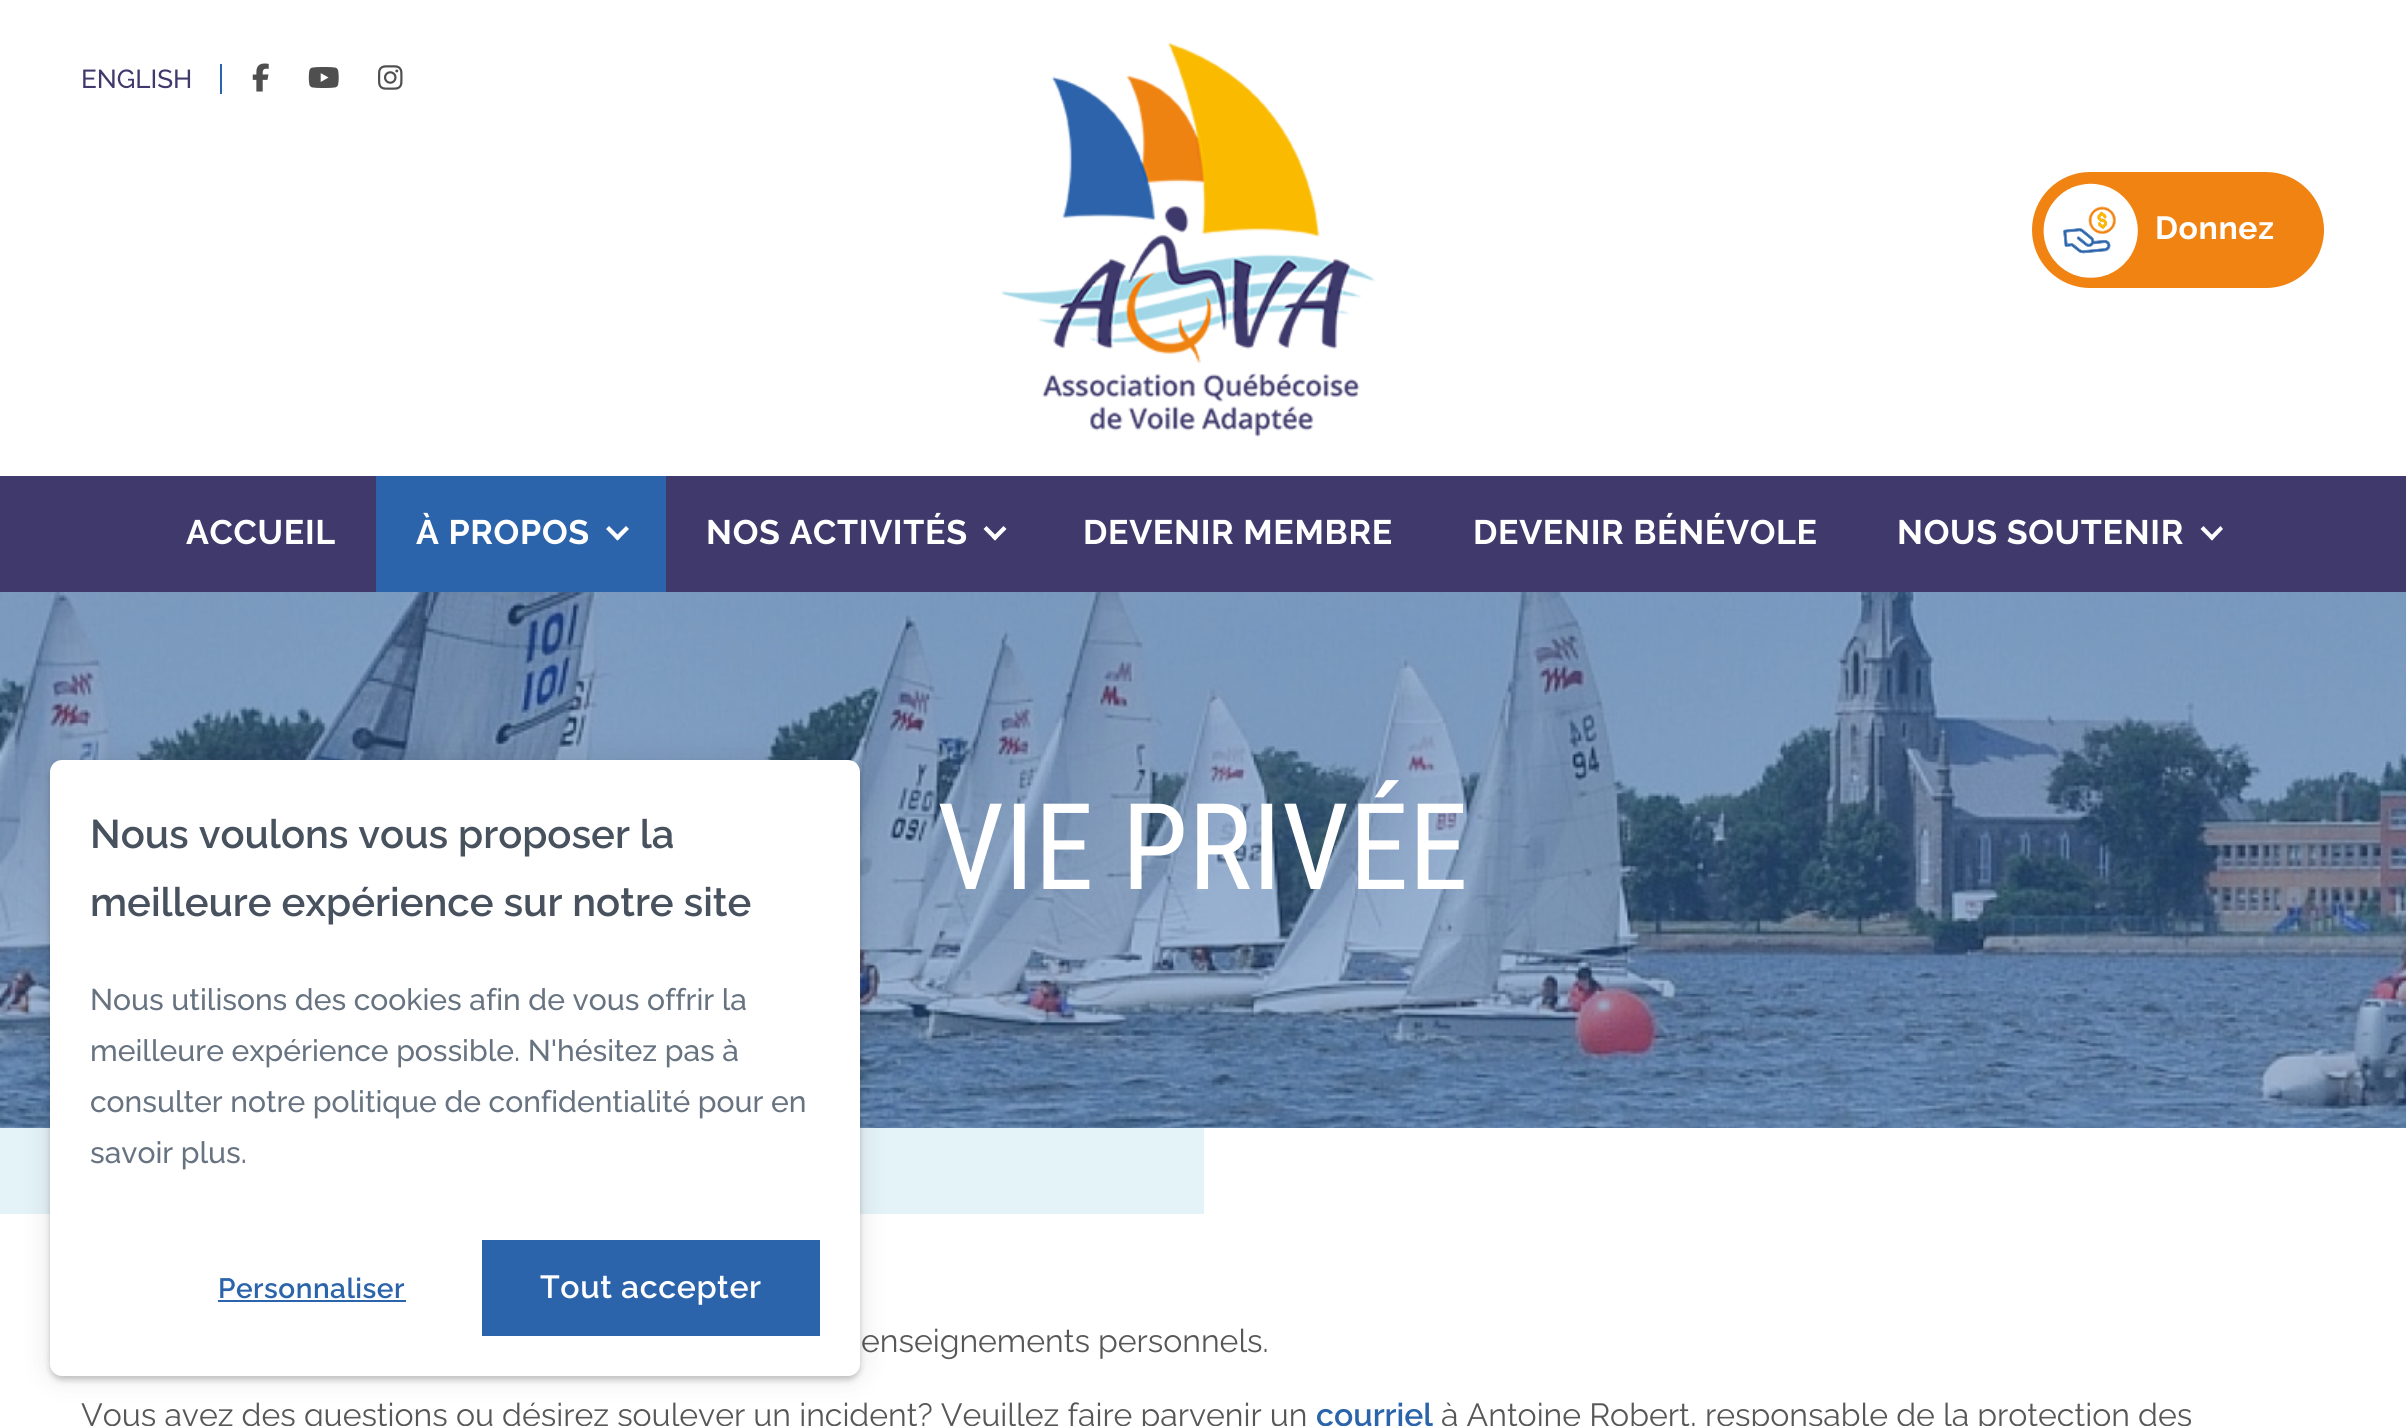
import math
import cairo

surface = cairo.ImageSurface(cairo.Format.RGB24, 2406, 1426)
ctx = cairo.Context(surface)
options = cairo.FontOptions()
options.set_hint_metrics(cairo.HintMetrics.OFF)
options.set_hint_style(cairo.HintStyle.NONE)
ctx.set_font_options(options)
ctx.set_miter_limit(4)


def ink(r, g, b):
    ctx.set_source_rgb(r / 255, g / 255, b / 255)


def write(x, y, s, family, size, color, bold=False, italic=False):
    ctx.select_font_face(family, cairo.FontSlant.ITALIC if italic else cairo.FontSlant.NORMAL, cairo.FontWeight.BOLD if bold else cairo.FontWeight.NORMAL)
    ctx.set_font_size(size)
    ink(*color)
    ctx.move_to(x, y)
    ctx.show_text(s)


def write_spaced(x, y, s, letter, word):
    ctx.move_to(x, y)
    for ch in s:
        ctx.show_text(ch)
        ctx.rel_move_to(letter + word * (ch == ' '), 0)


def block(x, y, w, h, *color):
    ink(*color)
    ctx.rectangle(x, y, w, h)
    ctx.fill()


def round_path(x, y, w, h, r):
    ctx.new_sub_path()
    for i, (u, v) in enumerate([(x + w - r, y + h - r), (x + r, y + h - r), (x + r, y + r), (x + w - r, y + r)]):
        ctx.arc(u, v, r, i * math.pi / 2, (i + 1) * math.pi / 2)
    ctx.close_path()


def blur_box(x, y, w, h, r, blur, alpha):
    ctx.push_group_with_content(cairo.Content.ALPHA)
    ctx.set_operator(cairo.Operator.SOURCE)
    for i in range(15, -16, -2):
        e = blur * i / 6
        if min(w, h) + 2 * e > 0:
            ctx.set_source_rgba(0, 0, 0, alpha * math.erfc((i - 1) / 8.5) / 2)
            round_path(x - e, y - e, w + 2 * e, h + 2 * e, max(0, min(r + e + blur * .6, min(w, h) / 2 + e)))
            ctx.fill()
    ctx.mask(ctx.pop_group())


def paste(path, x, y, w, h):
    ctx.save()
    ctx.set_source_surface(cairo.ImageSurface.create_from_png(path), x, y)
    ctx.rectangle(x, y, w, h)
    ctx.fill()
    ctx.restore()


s1 = dict(family="Raleway Medium", size=26, color=(64, 57, 108))
s2 = dict(family="Roboto Condensed", size=120, color=(255, 255, 255))
s3 = dict(family="Raleway", size=32, color=(87, 87, 87))
s4 = dict(family="Raleway SemiBold", size=32, color=(43, 100, 171))
s5 = dict(family="Raleway SemiBold", size=40, color=(72, 82, 94))
s6 = dict(family="Raleway Medium", size=30, color=(103, 115, 128))

ink(255, 255, 255)
ctx.paint()
write(81, 88, "ENGLISH", **s1)
block(220, 64, 2, 30, 43, 100, 171)
paste("pic1.png", 252, 63, 17, 29)
paste("pic2.png", 308, 67, 31, 21)
paste("pic3.png", 378, 65, 25, 25)
paste("pic4.png", 1001, 42, 375, 395)
ink(241, 131, 18)
round_path(2032, 172, 292, 116, 58)
ctx.fill()
paste("pic5.png", 2043, 183, 95, 95)
ctx.select_font_face("Raleway", cairo.FontSlant.NORMAL, cairo.FontWeight.BOLD)
ctx.set_font_size(32)
ink(255, 255, 255)
write_spaced(2155, 239, "Donnez", 0.6, 0)
block(0, 476, 2406, 116, 64, 57, 108)
ctx.set_font_size(34)
ink(255, 255, 255)
write_spaced(186, 544, "ACCUEIL", 0.7, 0)
block(376, 476, 290, 116, 43, 100, 171)
ink(255, 255, 255)
write_spaced(416, 544, "À PROPOS", 0.7, 0)
ctx.new_path()
ctx.move_to(626, 526)
ctx.line_to(629, 529)
ctx.line_to(617.5, 540.5)
ctx.line_to(614.5, 537.5)
ctx.close_path()
ctx.fill()
ctx.new_path()
ctx.move_to(609, 526)
ctx.line_to(620.5, 537.5)
ctx.line_to(617.5, 540.5)
ctx.line_to(606, 529)
ctx.close_path()
ctx.fill()
write_spaced(706, 544, "NOS ACTIVITÉS", 0.7, 0)
ctx.new_path()
ctx.move_to(1003.5, 526)
ctx.line_to(1006.5, 529)
ctx.line_to(995, 540.5)
ctx.line_to(992, 537.5)
ctx.close_path()
ctx.fill()
ctx.new_path()
ctx.move_to(986.5, 526)
ctx.line_to(998, 537.5)
ctx.line_to(995, 540.5)
ctx.line_to(983.5, 529)
ctx.close_path()
ctx.fill()
write_spaced(1083, 544, "DEVENIR MEMBRE", 0.7, 0)
write_spaced(1473, 544, "DEVENIR BÉNÉVOLE", 0.7, 0)
write_spaced(1897, 544, "NOUS SOUTENIR", 0.7, 0)
ctx.new_path()
ctx.move_to(2220.5, 526)
ctx.line_to(2223, 529)
ctx.line_to(2212, 540.5)
ctx.line_to(2209, 537.5)
ctx.close_path()
ctx.fill()
ctx.new_path()
ctx.move_to(2203.5, 526)
ctx.line_to(2214.5, 537.5)
ctx.line_to(2212, 540.5)
ctx.line_to(2200.5, 529)
ctx.close_path()
ctx.fill()
paste("pic6.png", 0, 592, 2406, 536)
write(937, 889, "VIE PRIVÉE", **s2)
block(0, 1128, 1204, 86, 228, 243, 248)
write(861, 1352, "enseignements personnels.", **s3)
write(81, 1426, "Vous avez des questions ou désirez soulever un incident? Veuillez faire parvenir un", **s3)
write(1316, 1426, "courriel", **s4)
write(1441, 1426, "à Antoine Robert, responsable de la protection des", **s3)
ink(0, 0, 0)
blur_box(50, 760, 810, 616, 12, 15, 0.1)
blur_box(50, 764, 810, 616, 12, 3, 0.2)
ink(255, 255, 255)
round_path(50, 760, 810, 616, 12)
ctx.fill()
write(90, 848, "Nous voulons vous proposer la", **s5)
write(90, 916, "meilleure expérience sur notre site", **s5)
write(90, 1010, "Nous utilisons des cookies afin de vous offrir la", **s6)
write(90, 1061, "meilleure expérience possible. N'hésitez pas à", **s6)
write(90, 1112, "consulter notre politique de confidentialité pour en", **s6)
write(90, 1163, "savoir plus.", **s6)
ctx.select_font_face("Raleway SemiBold")
ctx.set_font_size(28)
ink(43, 100, 171)
write_spaced(218, 1298, "Personnaliser", 0.5, 0)
block(218, 1300, 188, 2, 43, 100, 171)
block(482, 1240, 338, 96, 43, 100, 171)
ctx.set_font_size(32)
ink(255, 255, 255)
write_spaced(540, 1298, "Tout accepter", 0.6, 0)
surface.write_to_png("screenshot.png")
